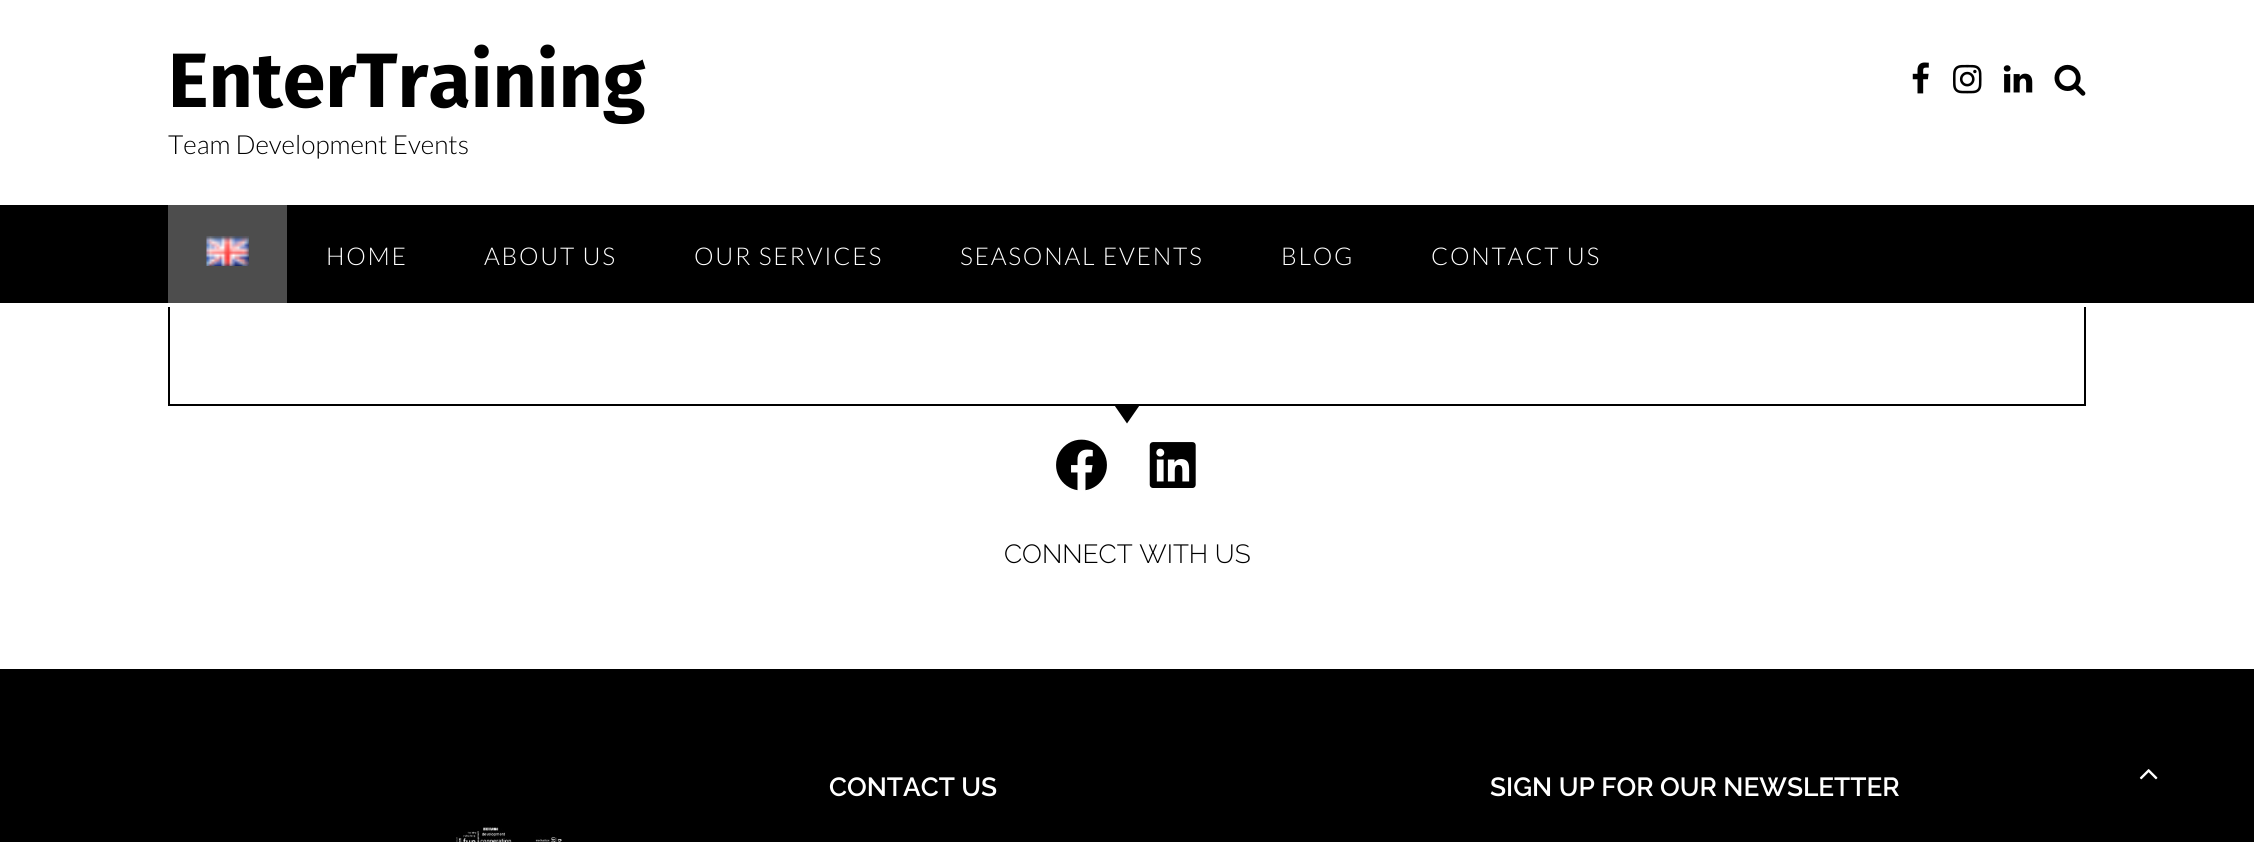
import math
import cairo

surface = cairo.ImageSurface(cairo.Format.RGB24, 2254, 842)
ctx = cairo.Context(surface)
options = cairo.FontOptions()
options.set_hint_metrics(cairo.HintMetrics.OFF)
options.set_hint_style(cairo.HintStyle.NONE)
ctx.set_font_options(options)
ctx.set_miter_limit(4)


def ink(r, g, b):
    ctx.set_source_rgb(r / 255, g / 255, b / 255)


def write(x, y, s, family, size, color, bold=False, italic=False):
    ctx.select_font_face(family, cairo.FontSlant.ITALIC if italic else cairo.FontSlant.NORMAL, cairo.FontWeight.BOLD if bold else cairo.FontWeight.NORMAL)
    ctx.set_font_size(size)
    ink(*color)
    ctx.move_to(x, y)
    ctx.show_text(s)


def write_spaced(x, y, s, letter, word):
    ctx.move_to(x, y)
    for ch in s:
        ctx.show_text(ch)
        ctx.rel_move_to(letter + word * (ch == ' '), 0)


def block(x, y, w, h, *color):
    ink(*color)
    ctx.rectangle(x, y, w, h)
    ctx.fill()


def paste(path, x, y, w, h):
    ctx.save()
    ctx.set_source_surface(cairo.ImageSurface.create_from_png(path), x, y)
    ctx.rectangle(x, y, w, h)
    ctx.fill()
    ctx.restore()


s1 = dict(family="Fira Sans", size=77, color=(0, 0, 0), bold=True)
s2 = dict(family="Lato Light", size=26.25, color=(0, 0, 0))
s3 = dict(family="Raleway Light", size=26.25, color=(0, 0, 0))
s4 = dict(family="Raleway SemiBold", size=26.25, color=(255, 255, 255))

ink(255, 255, 255)
ctx.paint()
ctx.rectangle(169, -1, 1916, 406)
ink(0, 0, 0)
ctx.stroke()
block(168, 0, 1918, 205, 255, 255, 255)
write(168, 107, "EnterTraining", **s1)
write(168, 154, "Team Development Events", **s2)
paste("pic1.png", 1912, 62, 17, 32)
paste("pic2.png", 1953, 64, 29, 30)
paste("pic3.png", 2003, 65, 30, 28)
paste("pic4.png", 2054, 64, 32, 32)
block(0, 205, 2254, 98, 0, 0, 0)
block(168, 303, 1918, 4, 255, 255, 255)
block(168, 205, 119, 98, 77, 77, 77)
paste("pic5.png", 206, 236, 43, 30)
ctx.set_font_size(24.5)
ink(255, 255, 255)
write_spaced(326, 265, "HOME", 1.75, 0)
write_spaced(484, 265, "ABOUT US", 1.75, 0)
write_spaced(694, 265, "OUR SERVICES", 1.75, 0)
write_spaced(960, 265, "SEASONAL EVENTS", 1.75, 0)
write_spaced(1281, 265, "BLOG", 1.75, 0)
write_spaced(1431, 265, "CONTACT US", 1.75, 0)
ink(0, 0, 0)
ctx.new_path()
ctx.move_to(1127, 423.5)
ctx.line_to(1113.5, 404)
ctx.line_to(1140.5, 404)
ctx.close_path()
ctx.fill()
paste("pic6.png", 1056, 439, 51, 52)
paste("pic7.png", 1149, 442, 47, 46)
write(1004, 563, "CONNECT WITH US", **s3)
block(0, 669, 2254, 173, 0, 0, 0)
paste("pic8.png", 2139, 769, 19, 11)
write(829, 796, "CONTACT US", **s4)
write(1490, 796, "SIGN UP FOR OUR NEWSLETTER", **s4)
paste("pic9.png", 456, 827, 106, 15)
surface.write_to_png("screenshot.png")
